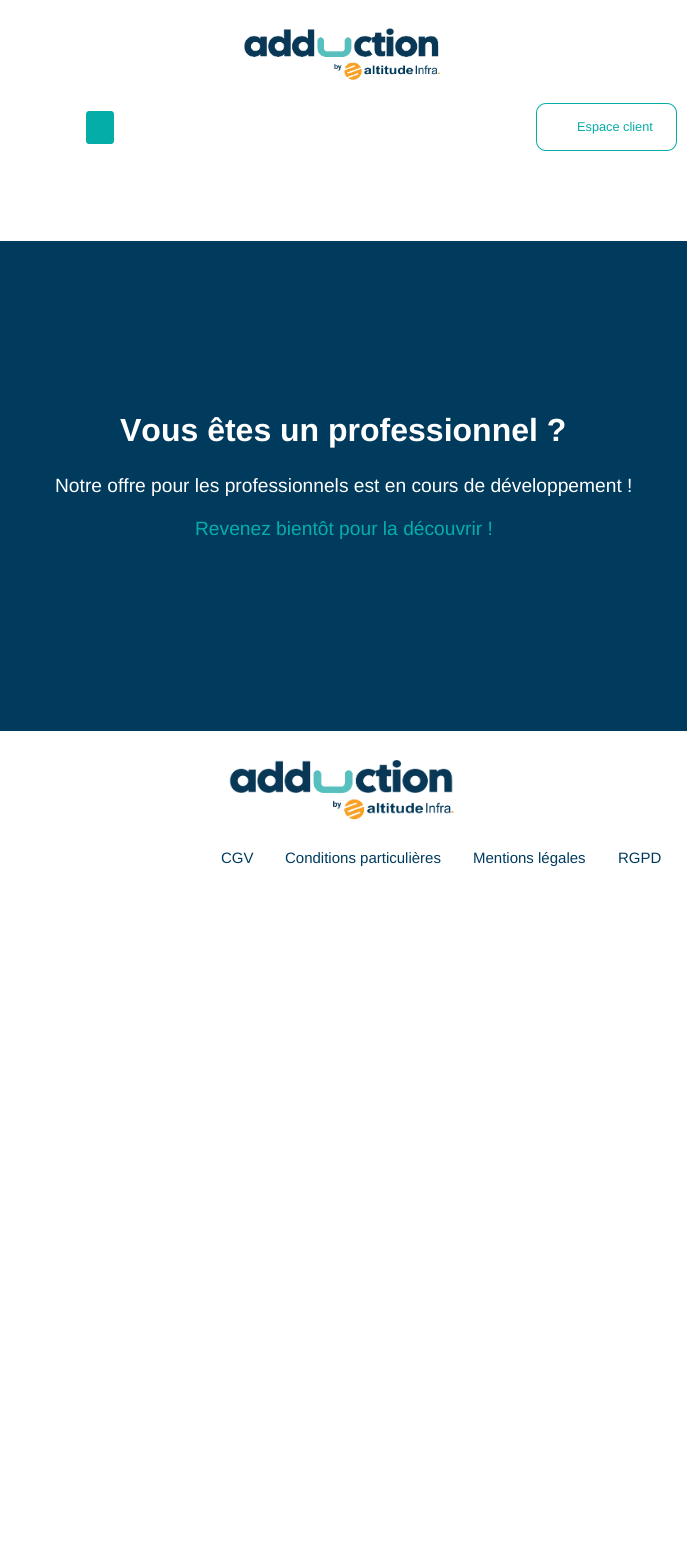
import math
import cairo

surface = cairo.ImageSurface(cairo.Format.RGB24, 687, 1542)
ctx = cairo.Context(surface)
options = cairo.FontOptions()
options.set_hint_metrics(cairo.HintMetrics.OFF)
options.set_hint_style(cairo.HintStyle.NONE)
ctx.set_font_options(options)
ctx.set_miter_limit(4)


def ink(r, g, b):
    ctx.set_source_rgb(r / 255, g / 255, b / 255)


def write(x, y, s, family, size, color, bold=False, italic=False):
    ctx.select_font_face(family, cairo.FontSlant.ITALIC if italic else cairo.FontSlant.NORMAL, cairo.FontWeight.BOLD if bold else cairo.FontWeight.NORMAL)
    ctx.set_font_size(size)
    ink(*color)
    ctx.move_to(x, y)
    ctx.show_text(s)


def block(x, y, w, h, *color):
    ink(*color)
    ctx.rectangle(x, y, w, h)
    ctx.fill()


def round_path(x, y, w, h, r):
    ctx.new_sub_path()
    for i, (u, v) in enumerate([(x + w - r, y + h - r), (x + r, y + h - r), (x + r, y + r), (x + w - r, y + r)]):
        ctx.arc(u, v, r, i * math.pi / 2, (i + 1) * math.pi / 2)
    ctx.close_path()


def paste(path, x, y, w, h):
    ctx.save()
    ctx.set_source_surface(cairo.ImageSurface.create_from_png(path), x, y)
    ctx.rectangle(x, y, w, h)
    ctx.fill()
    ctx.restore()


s1 = dict(family="Liberation Sans", size=12.75, color=(5, 173, 169))
s2 = dict(family="Liberation Sans", size=32, color=(255, 255, 255), bold=True)
s3 = dict(family="Liberation Sans", size=19.2, color=(255, 255, 255))
s4 = dict(family="Liberation Sans", size=19.2, color=(5, 173, 169))
s5 = dict(family="Liberation Sans", size=15, color=(0, 59, 94))

ink(255, 255, 255)
ctx.paint()
paste("pic1.png", 244, 28, 196, 52)
ink(5, 173, 169)
round_path(86, 111, 28, 33, 3)
ctx.fill()
round_path(536.5, 103.5, 140, 47, 9.5)
ctx.set_line_width(1)
ctx.stroke()
write(577, 131, "Espace client", **s1)
block(0, 241, 687, 490, 0, 59, 94)
write(120, 441, "Vous êtes un professionnel ?", **s2)
write(55, 492, "Notre offre pour les professionnels est en cours de développement !", **s3)
write(195, 535, "Revenez bientôt pour la découvrir !", **s4)
paste("pic2.png", 229, 760, 225, 60)
write(221, 863, "CGV", **s5)
write(285, 863, "Conditions particulières", **s5)
write(473, 863, "Mentions légales", **s5)
write(618, 863, "RGPD", **s5)
surface.write_to_png("screenshot.png")
